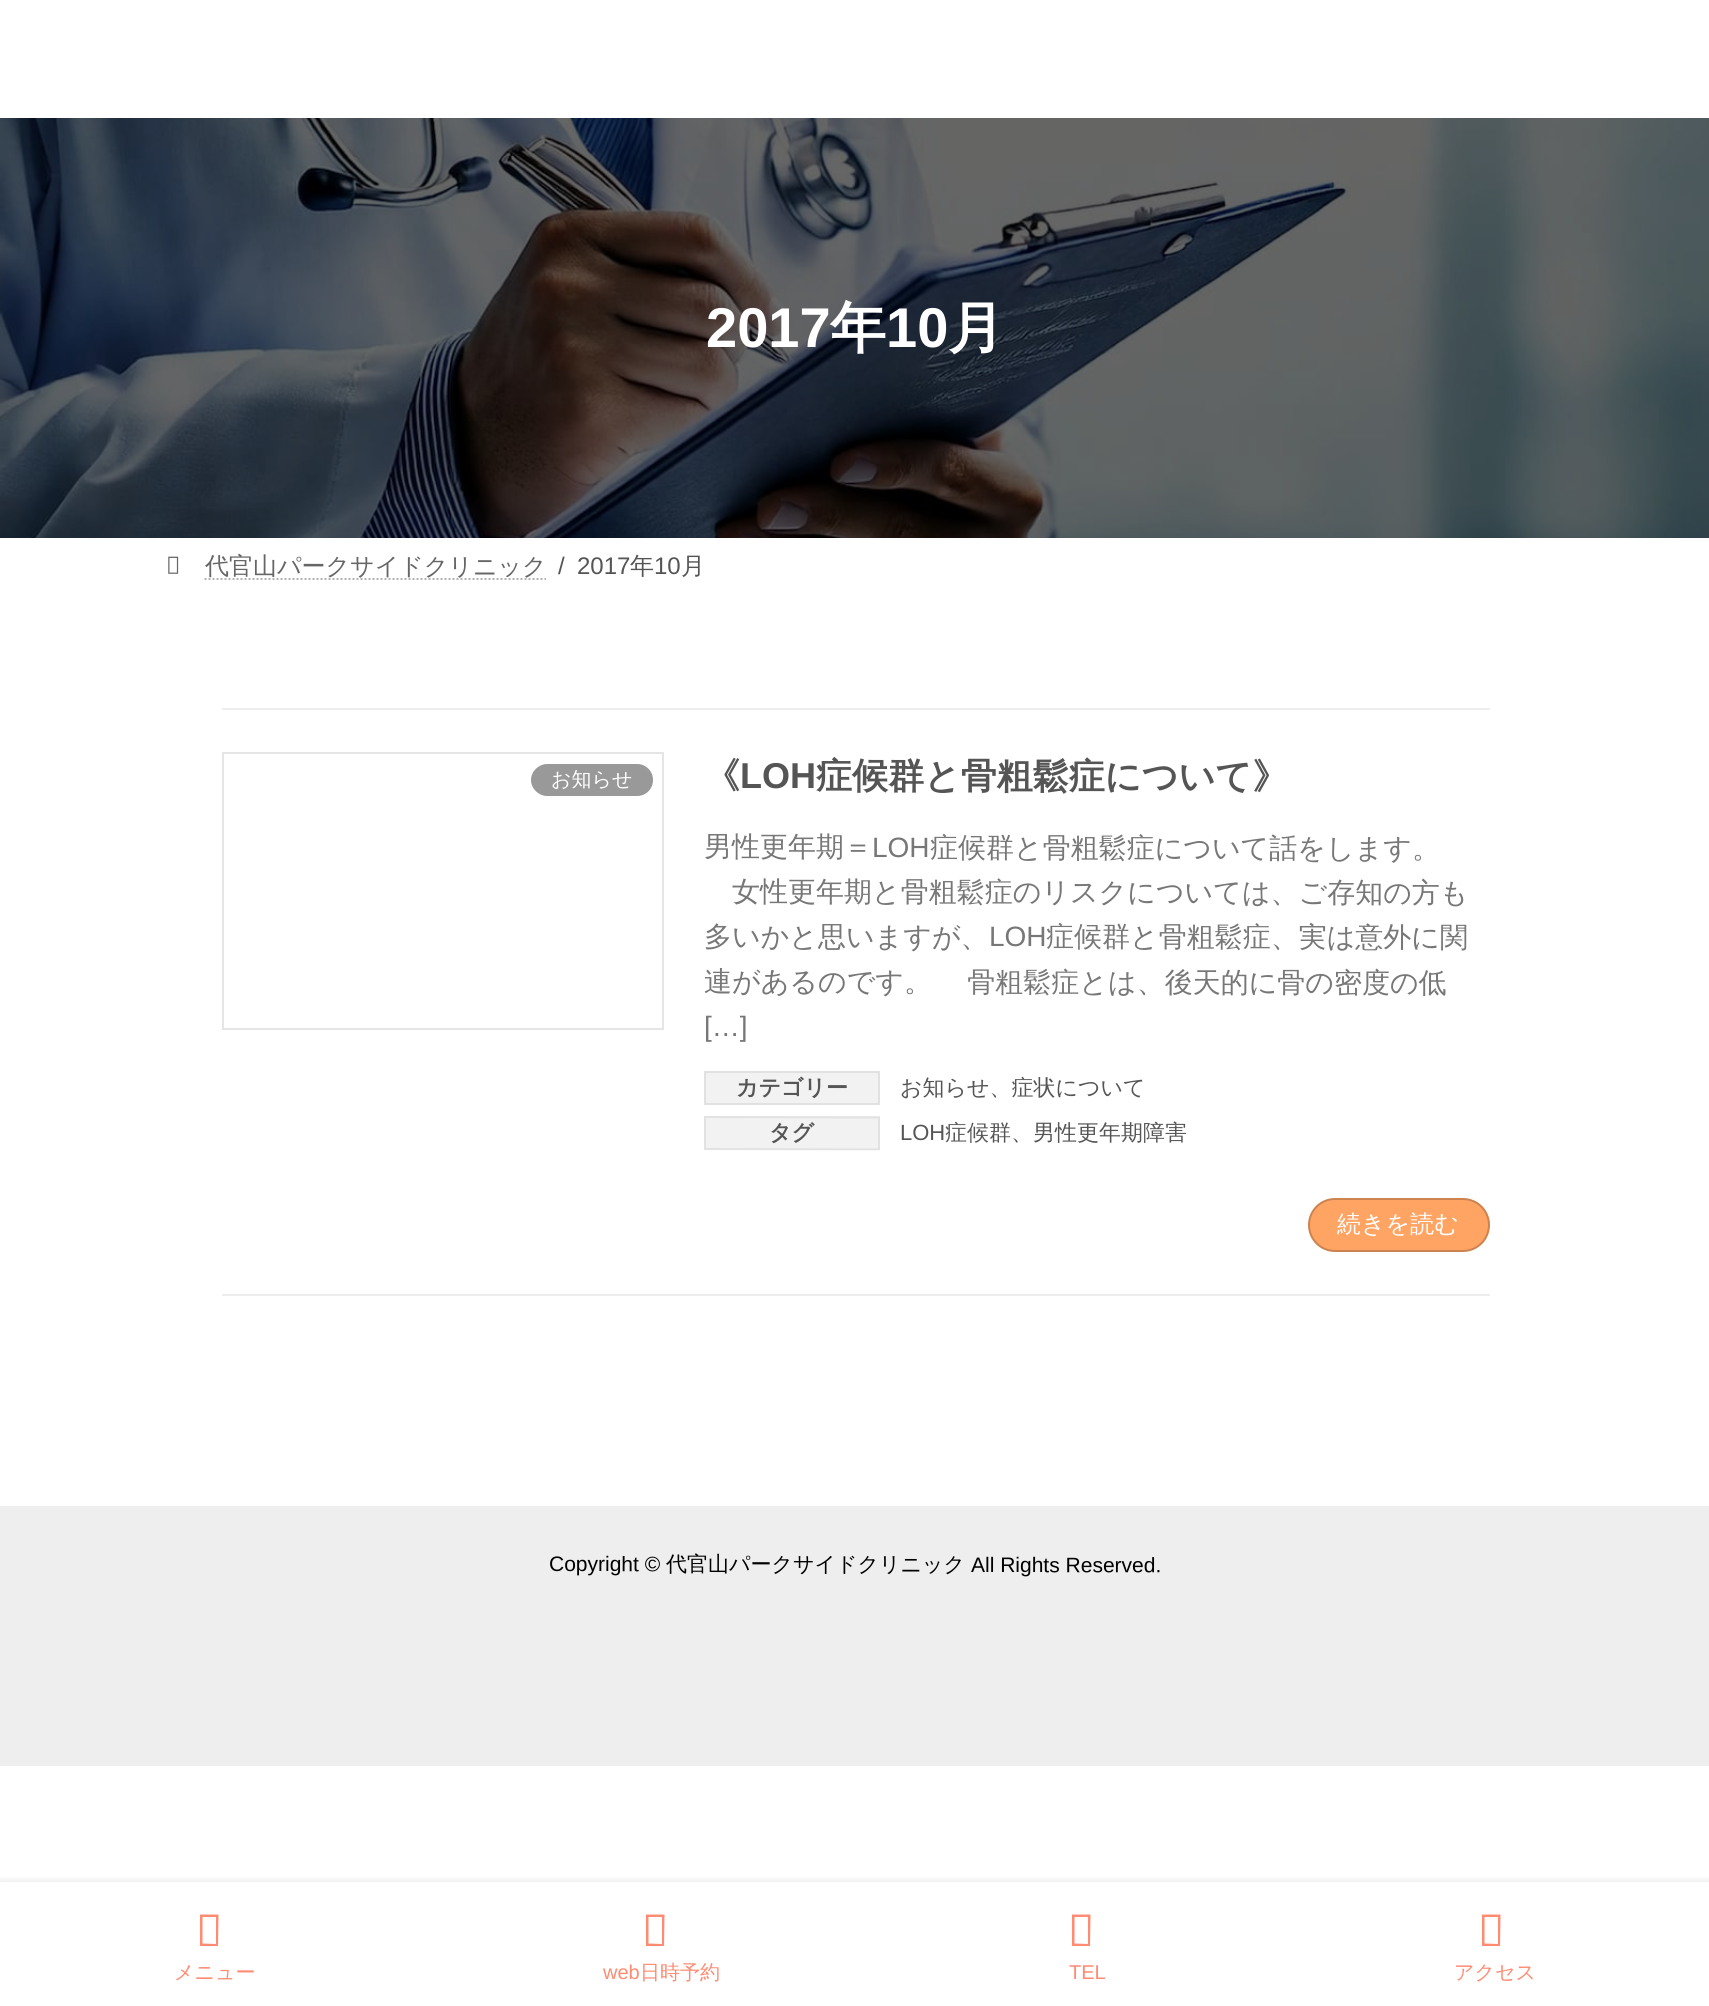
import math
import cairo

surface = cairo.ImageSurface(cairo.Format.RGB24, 1709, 2006)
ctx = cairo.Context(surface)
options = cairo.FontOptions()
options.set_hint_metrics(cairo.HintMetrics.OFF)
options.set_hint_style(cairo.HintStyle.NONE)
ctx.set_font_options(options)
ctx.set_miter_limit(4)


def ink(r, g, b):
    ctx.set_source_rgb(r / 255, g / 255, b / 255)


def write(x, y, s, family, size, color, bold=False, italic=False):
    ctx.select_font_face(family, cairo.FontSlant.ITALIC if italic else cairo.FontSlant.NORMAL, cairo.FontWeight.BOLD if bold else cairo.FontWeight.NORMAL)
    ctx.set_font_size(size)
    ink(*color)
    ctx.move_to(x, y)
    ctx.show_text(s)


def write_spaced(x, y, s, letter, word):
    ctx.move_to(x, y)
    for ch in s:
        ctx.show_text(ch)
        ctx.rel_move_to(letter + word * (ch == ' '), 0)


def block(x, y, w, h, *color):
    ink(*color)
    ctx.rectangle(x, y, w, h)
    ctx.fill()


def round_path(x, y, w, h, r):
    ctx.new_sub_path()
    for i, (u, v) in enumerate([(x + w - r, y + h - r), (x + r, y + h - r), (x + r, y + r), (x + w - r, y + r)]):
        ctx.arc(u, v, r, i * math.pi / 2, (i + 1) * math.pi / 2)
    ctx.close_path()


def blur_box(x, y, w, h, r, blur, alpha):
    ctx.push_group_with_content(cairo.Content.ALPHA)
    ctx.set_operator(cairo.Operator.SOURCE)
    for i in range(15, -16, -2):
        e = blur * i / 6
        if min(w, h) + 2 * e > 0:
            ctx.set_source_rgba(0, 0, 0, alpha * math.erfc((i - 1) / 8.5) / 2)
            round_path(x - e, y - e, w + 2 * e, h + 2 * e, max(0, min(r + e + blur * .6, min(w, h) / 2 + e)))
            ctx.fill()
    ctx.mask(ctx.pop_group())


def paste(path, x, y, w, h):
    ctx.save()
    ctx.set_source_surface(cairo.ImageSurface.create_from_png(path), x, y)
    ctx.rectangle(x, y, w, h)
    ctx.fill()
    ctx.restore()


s1 = dict(family="Liberation Sans", size=56, color=(255, 255, 255), bold=True)
s2 = dict(family="WenQuanYi Zen Hei", size=56, color=(255, 255, 255), bold=True)
s3 = dict(family="WenQuanYi Zen Hei Medium", size=24, color=(102, 102, 102))
s4 = dict(family="Liberation Sans", size=24, color=(85, 85, 85))
s5 = dict(family="WenQuanYi Zen Hei Medium", size=24, color=(85, 85, 85))
s6 = dict(family="WenQuanYi Zen Hei Medium", size=20, color=(255, 255, 255))
s7 = dict(family="WenQuanYi Zen Hei", size=36, color=(85, 85, 85), bold=True)
s8 = dict(family="Liberation Sans", size=36, color=(85, 85, 85), bold=True)
s9 = dict(family="WenQuanYi Zen Hei Medium", size=28, color=(119, 119, 119))
s10 = dict(family="Liberation Sans", size=28, color=(119, 119, 119))
s11 = dict(family="WenQuanYi Zen Hei", size=22, color=(85, 85, 85), bold=True)
s12 = dict(family="WenQuanYi Zen Hei Medium", size=22, color=(85, 85, 85))
s13 = dict(family="Liberation Sans", size=22, color=(85, 85, 85))
s14 = dict(family="WenQuanYi Zen Hei Medium", size=24, color=(255, 255, 255))
s15 = dict(family="Liberation Sans", size=21, color=(0, 0, 0))
s16 = dict(family="WenQuanYi Zen Hei Medium", size=21, color=(0, 0, 0))
s17 = dict(family="WenQuanYi Zen Hei Medium", size=20, color=(255, 139, 115))
s18 = dict(family="Liberation Sans", size=20, color=(255, 139, 115))

ink(255, 255, 255)
ctx.paint()
paste("pic1.png", 0, 118, 1709, 420)
write(706, 347, "2017", **s1)
write(830, 347, "年", **s2)
write(886, 347, "10", **s1)
write(948, 347, "月", **s2)
paste("pic2.png", 168, 556, 11, 18)
ctx.save()
ctx.translate(205, 574)
ctx.rotate(0.1 * math.pi / 180)
write(0, 0, "代官山パークサイドクリニック", **s3)
ctx.restore()
ctx.new_path()
ctx.move_to(204.5, 579)
ctx.line_to(546, 579)
ink(179, 179, 179)
ctx.set_dash([2, 2])
ctx.stroke()
ctx.save()
ctx.translate(558, 574)
ctx.rotate(0.1 * math.pi / 180)
write(0, 0, "/", **s4)
ctx.restore()
ctx.save()
ctx.translate(577, 574)
ctx.rotate(0.1 * math.pi / 180)
write(0, 0, "2017", **s4)
ctx.restore()
ctx.save()
ctx.translate(630, 574)
ctx.rotate(0.1 * math.pi / 180)
write(0, 0, "年", **s5)
ctx.restore()
ctx.save()
ctx.translate(654, 574)
ctx.rotate(0.1 * math.pi / 180)
write(0, 0, "10", **s4)
ctx.restore()
ctx.save()
ctx.translate(681, 574)
ctx.rotate(0.1 * math.pi / 180)
write(0, 0, "月", **s5)
ctx.restore()
block(222, 708, 1268, 2, 237, 237, 237)
block(222, 1294, 1268, 2, 237, 237, 237)
ctx.rectangle(223, 753, 440, 276)
ink(229, 229, 229)
ctx.set_dash([])
ctx.stroke()
ink(153, 153, 153)
ctx.new_path()
ctx.move_to(547, 764)
ctx.line_to(637, 764)
ctx.curve_to(646, 764, 653, 771, 653, 780)
ctx.curve_to(653, 789, 646, 796, 637, 796)
ctx.line_to(547, 796)
ctx.curve_to(539, 796, 531, 789, 531, 780)
ctx.curve_to(531, 771, 539, 764, 547, 764)
ctx.close_path()
ctx.fill()
ctx.save()
ctx.translate(551, 786)
ctx.rotate(0.1 * math.pi / 180)
write(0, 0, "お知らせ", **s6)
ctx.restore()
ctx.save()
ctx.translate(704, 788)
ctx.rotate(0.1 * math.pi / 180)
write(0, 0, "《", **s7)
ctx.restore()
ctx.save()
ctx.translate(740, 788)
ctx.rotate(0.1 * math.pi / 180)
write(0, 0, "LOH", **s8)
ctx.restore()
ctx.save()
ctx.translate(816, 788)
ctx.rotate(0.1 * math.pi / 180)
write(0, 0, "症候群と骨粗鬆症について》", **s7)
ctx.restore()
ctx.save()
ctx.translate(704, 856)
ctx.rotate(0.1 * math.pi / 180)
write(0, 0, "男性更年期＝", **s9)
ctx.restore()
ctx.save()
ctx.translate(872, 857)
ctx.rotate(0.1 * math.pi / 180)
write(0, 0, "LOH", **s10)
ctx.restore()
ctx.save()
ctx.translate(930, 857)
ctx.rotate(0.1 * math.pi / 180)
write(0, 0, "症候群と骨粗鬆症について話をします。", **s9)
ctx.restore()
ctx.save()
ctx.translate(732, 901)
ctx.rotate(0.1 * math.pi / 180)
write(0, 0, "女性更年期と骨粗鬆症のリスクについては、ご存知の方も", **s9)
ctx.restore()
ctx.save()
ctx.translate(704, 946)
ctx.rotate(0.1 * math.pi / 180)
write(0, 0, "多いかと思いますが、", **s9)
ctx.restore()
ctx.save()
ctx.translate(989, 946)
ctx.rotate(0.1 * math.pi / 180)
write(0, 0, "LOH", **s10)
ctx.restore()
ctx.save()
ctx.translate(1046, 946)
ctx.rotate(0.1 * math.pi / 180)
write(0, 0, "症候群と骨粗鬆症、実は意外に関", **s9)
ctx.restore()
ctx.select_font_face("WenQuanYi Zen Hei Medium")
ctx.set_font_size(28)
ink(119, 119, 119)
ctx.save()
ctx.translate(704, 991)
ctx.rotate(0.1 * math.pi / 180)
write_spaced(0, 0, "連があるのです。 　骨粗鬆症とは、後天的に骨の密度の低", 0, -1)
ctx.restore()
ctx.save()
ctx.translate(704, 1036)
ctx.rotate(0.1 * math.pi / 180)
write(0, 0, "[…]", **s10)
ctx.restore()
block(706, 1073, 172, 30, 242, 242, 242)
ctx.new_path()
ctx.move_to(705, 1072)
ctx.line_to(879, 1072)
ctx.line_to(879, 1104)
ctx.line_to(705, 1104)
ctx.close_path()
ink(225, 225, 225)
ctx.stroke()
ctx.save()
ctx.translate(736, 1095)
ctx.rotate(0.1 * math.pi / 180)
write(0, 0, "カテゴリー", **s11)
ctx.restore()
write(900, 1095, "お知らせ、症状について", **s12)
block(704, 1116, 176, 34, 242, 242, 242)
ctx.new_path()
ctx.move_to(705, 1117)
ctx.line_to(879, 1117.5)
ctx.line_to(879, 1149.5)
ctx.line_to(705, 1149)
ctx.close_path()
ctx.set_source_rgba(0, 0, 0, 0.07)
ctx.stroke()
ctx.save()
ctx.translate(769, 1140)
ctx.rotate(0.1 * math.pi / 180)
write(0, 0, "タグ", **s11)
ctx.restore()
write(900, 1140, "LOH", **s13)
write(945, 1140, "症候群、男性更年期障害", **s12)
ink(255, 164, 99)
round_path(1309, 1199, 180, 52, 26)
ctx.fill_preserve()
ink(204, 131, 79)
ctx.stroke()
write(1337, 1232, "続きを読む", **s14)
block(0, 1506, 1709, 260, 238, 238, 238)
ctx.save()
ctx.translate(549, 1571)
ctx.rotate(0.1 * math.pi / 180)
write(0, 0, "Copyright ©", **s15)
ctx.restore()
ctx.save()
ctx.translate(666, 1571)
ctx.rotate(0.1 * math.pi / 180)
write(0, 0, "代官山パークサイドクリニック", **s16)
ctx.restore()
ctx.save()
ctx.translate(971, 1572)
ctx.rotate(0.1 * math.pi / 180)
write(0, 0, "All Rights Reserved.", **s15)
ctx.restore()
ctx.save()
ctx.rectangle(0, 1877, 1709, 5)
ctx.clip()
ink(0, 0, 0)
blur_box(0, 1882, 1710, 124, 0, 5, 0.12)
ctx.restore()
ink(255, 139, 115)
ctx.new_path()
ctx.move_to(200, 1946)
ctx.line_to(200, 1914.5)
ctx.line_to(218.5, 1914.5)
ctx.line_to(218, 1946)
ctx.close_path()
ctx.move_to(202.5, 1943.5)
ctx.line_to(216, 1944)
ctx.line_to(216, 1917)
ctx.line_to(202.5, 1917)
ctx.close_path()
ctx.fill()
ctx.save()
ctx.translate(174, 1979)
ctx.rotate(0.1 * math.pi / 180)
write(0, 0, "メニュー", **s17)
ctx.restore()
ink(255, 139, 115)
ctx.new_path()
ctx.move_to(646, 1946)
ctx.line_to(646, 1914.5)
ctx.line_to(664.5, 1914.5)
ctx.line_to(664, 1946)
ctx.close_path()
ctx.move_to(648.5, 1943.5)
ctx.line_to(662, 1944)
ctx.line_to(662, 1917)
ctx.line_to(648.5, 1917)
ctx.close_path()
ctx.fill()
ctx.save()
ctx.translate(603, 1979)
ctx.rotate(0.1 * math.pi / 180)
write(0, 0, "web", **s18)
ctx.restore()
ctx.save()
ctx.translate(640, 1979)
ctx.rotate(0.1 * math.pi / 180)
write(0, 0, "日時予約", **s17)
ctx.restore()
ink(255, 139, 115)
ctx.new_path()
ctx.move_to(1072, 1946)
ctx.line_to(1072, 1914.5)
ctx.line_to(1090.5, 1914.5)
ctx.line_to(1090, 1946)
ctx.close_path()
ctx.move_to(1074.5, 1943.5)
ctx.line_to(1088, 1944)
ctx.line_to(1088, 1917)
ctx.line_to(1074.5, 1917)
ctx.close_path()
ctx.fill()
ctx.save()
ctx.translate(1069, 1979)
ctx.rotate(0.1 * math.pi / 180)
write(0, 0, "TEL", **s18)
ctx.restore()
ink(255, 139, 115)
ctx.new_path()
ctx.move_to(1482, 1946)
ctx.line_to(1482, 1914.5)
ctx.line_to(1500.5, 1914.5)
ctx.line_to(1500, 1946)
ctx.close_path()
ctx.move_to(1484.5, 1943.5)
ctx.line_to(1498, 1944)
ctx.line_to(1498, 1917)
ctx.line_to(1484.5, 1917)
ctx.close_path()
ctx.fill()
ctx.save()
ctx.translate(1454, 1979)
ctx.rotate(0.1 * math.pi / 180)
write(0, 0, "アクセス", **s17)
ctx.restore()
surface.write_to_png("screenshot.png")
